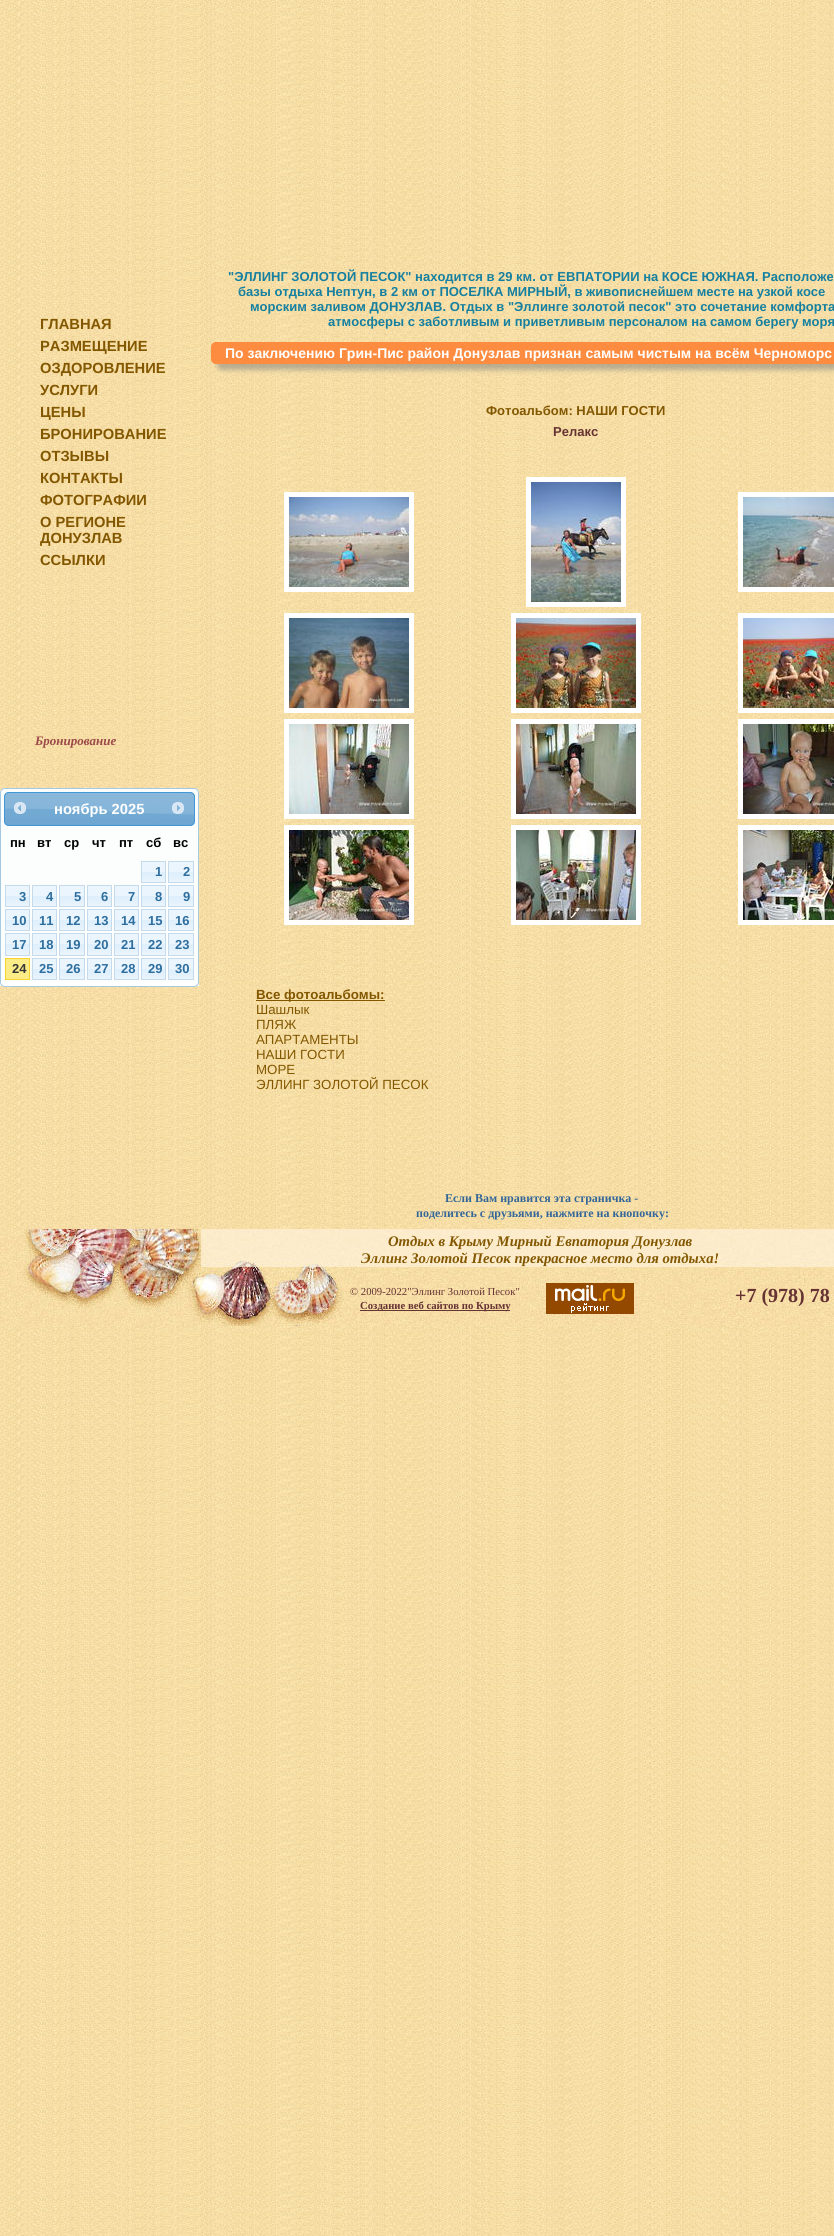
import math
import cairo

surface = cairo.ImageSurface(cairo.Format.RGB24, 834, 2236)
ctx = cairo.Context(surface)
options = cairo.FontOptions()
options.set_hint_metrics(cairo.HintMetrics.OFF)
options.set_hint_style(cairo.HintStyle.NONE)
ctx.set_font_options(options)
ctx.set_miter_limit(4)


def ink(r, g, b):
    ctx.set_source_rgb(r / 255, g / 255, b / 255)


def write(x, y, s, family, size, color, bold=False, italic=False):
    ctx.select_font_face(family, cairo.FontSlant.ITALIC if italic else cairo.FontSlant.NORMAL, cairo.FontWeight.BOLD if bold else cairo.FontWeight.NORMAL)
    ctx.set_font_size(size)
    ink(*color)
    ctx.move_to(x, y)
    ctx.show_text(s)


def block(x, y, w, h, *color):
    ink(*color)
    ctx.rectangle(x, y, w, h)
    ctx.fill()


def round_path(x, y, w, h, r):
    ctx.new_sub_path()
    for i, (u, v) in enumerate([(x + w - r, y + h - r), (x + r, y + h - r), (x + r, y + r), (x + w - r, y + r)]):
        ctx.arc(u, v, r, i * math.pi / 2, (i + 1) * math.pi / 2)
    ctx.close_path()


def blur_box(x, y, w, h, r, blur, alpha):
    ctx.push_group_with_content(cairo.Content.ALPHA)
    ctx.set_operator(cairo.Operator.SOURCE)
    for i in range(15, -16, -2):
        e = blur * i / 6
        if min(w, h) + 2 * e > 0:
            ctx.set_source_rgba(0, 0, 0, alpha * math.erfc((i - 1) / 8.5) / 2)
            round_path(x - e, y - e, w + 2 * e, h + 2 * e, max(0, min(r + e + blur * .6, min(w, h) / 2 + e)))
            ctx.fill()
    ctx.mask(ctx.pop_group())


def paste(path, x, y, w, h):
    ctx.save()
    ctx.set_source_surface(cairo.ImageSurface.create_from_png(path), x, y)
    ctx.rectangle(x, y, w, h)
    ctx.fill()
    ctx.restore()


s1 = dict(family="Liberation Sans", size=14.7, color=(130, 87, 0), bold=True)
s2 = dict(family="Liberation Serif", size=13, color=(156, 73, 73), bold=True, italic=True)
s3 = dict(family="Liberation Sans", size=14.7, color=(255, 255, 255), bold=True)
s4 = dict(family="Liberation Sans", size=13, color=(0, 0, 0), bold=True)
s5 = dict(family="Liberation Sans", size=13, color=(46, 110, 158), bold=True)
s6 = dict(family="Liberation Sans", size=13, color=(54, 54, 54), bold=True)
s7 = dict(family="Liberation Sans", size=13, color=(22, 128, 160), bold=True)
s8 = dict(family="Liberation Sans", size=14, color=(255, 255, 255), bold=True)
s9 = dict(family="Liberation Sans", size=13, color=(130, 87, 0), bold=True)
s10 = dict(family="Liberation Sans", size=13, color=(102, 51, 51), bold=True)
s11 = dict(family="Liberation Sans", size=13.3, color=(130, 87, 0), bold=True)
s12 = dict(family="Liberation Sans", size=13.3, color=(130, 87, 0))
s13 = dict(family="Liberation Serif", size=12, color=(51, 102, 153), bold=True)
s14 = dict(family="Liberation Serif", size=14.7, color=(130, 87, 0), bold=True, italic=True)
s15 = dict(family="Liberation Serif", size=10.7, color=(102, 51, 51))
s16 = dict(family="Liberation Serif", size=10.7, color=(102, 51, 51), bold=True)
s17 = dict(family="Liberation Serif", size=20, color=(102, 51, 51), bold=True)

ink(255, 255, 255)
ctx.paint()
paste("pic1.png", 0, 0, 834, 2236)
write(40, 329, "ГЛАВНАЯ", **s1)
write(40, 351, "РАЗМЕЩЕНИЕ", **s1)
write(40, 373, "ОЗДОРОВЛЕНИЕ", **s1)
write(40, 395, "УСЛУГИ", **s1)
write(40, 417, "ЦЕНЫ", **s1)
write(40, 439, "БРОНИРОВАНИЕ", **s1)
write(40, 461, "ОТЗЫВЫ", **s1)
write(40, 483, "КОНТАКТЫ", **s1)
write(40, 505, "ФОТОГРАФИИ", **s1)
write(40, 527, "О РЕГИОНЕ", **s1)
write(40, 543, "ДОНУЗЛАВ", **s1)
write(40, 565, "ССЫЛКИ", **s1)
write(35, 745, "Бронирование", **s2)
ink(252, 253, 253)
round_path(0, 788, 199, 199, 5)
ctx.fill()
block(0, 982, 199, 4, 254, 255, 255)
round_path(0.5, 788.5, 198, 198, 4.5)
ink(166, 201, 226)
ctx.set_line_width(1)
ctx.stroke()
paste("pic2.png", 4, 792, 191, 34)
round_path(4.5, 792.5, 190, 33, 4.5)
ink(66, 151, 215)
ctx.stroke()
paste("pic3.png", 14, 802, 12, 12)
write(54, 814, "ноябрь 2025", **s3)
paste("pic4.png", 172, 802, 12, 12)
write(10, 847, "пн", **s4)
write(37, 847, "вт", **s4)
write(64, 847, "ср", **s4)
write(92, 847, "чт", **s4)
write(119, 847, "пт", **s4)
write(146, 847, "сб", **s4)
write(173, 847, "вс", **s4)
paste("pic5.png", 142, 862, 23, 20)
ctx.rectangle(141.5, 861.5, 24, 21)
ink(197, 219, 236)
ctx.stroke()
write(155, 876, "1", **s5)
paste("pic6.png", 169, 862, 24, 20)
ctx.rectangle(168.5, 861.5, 25, 21)
ink(197, 219, 236)
ctx.stroke()
write(183, 876, "2", **s5)
paste("pic5.png", 6, 886, 23, 20)
ctx.rectangle(5.5, 885.5, 24, 21)
ink(197, 219, 236)
ctx.stroke()
write(19, 901, "3", **s5)
paste("pic5.png", 33, 886, 23, 20)
ctx.rectangle(32.5, 885.5, 24, 21)
ink(197, 219, 236)
ctx.stroke()
write(46, 901, "4", **s5)
paste("pic6.png", 60, 886, 24, 20)
ctx.rectangle(59.5, 885.5, 25, 21)
ink(197, 219, 236)
ctx.stroke()
write(74, 901, "5", **s5)
paste("pic5.png", 88, 886, 23, 20)
ctx.rectangle(87.5, 885.5, 24, 21)
ink(197, 219, 236)
ctx.stroke()
write(101, 901, "6", **s5)
paste("pic5.png", 115, 886, 23, 20)
ctx.rectangle(114.5, 885.5, 24, 21)
ink(197, 219, 236)
ctx.stroke()
write(128, 901, "7", **s5)
paste("pic5.png", 142, 886, 23, 20)
ctx.rectangle(141.5, 885.5, 24, 21)
ink(197, 219, 236)
ctx.stroke()
write(155, 901, "8", **s5)
paste("pic6.png", 169, 886, 24, 20)
ctx.rectangle(168.5, 885.5, 25, 21)
ink(197, 219, 236)
ctx.stroke()
write(183, 901, "9", **s5)
paste("pic5.png", 6, 910, 23, 20)
ctx.rectangle(5.5, 909.5, 24, 21)
ink(197, 219, 236)
ctx.stroke()
write(12, 925, "10", **s5)
paste("pic5.png", 33, 910, 23, 20)
ctx.rectangle(32.5, 909.5, 24, 21)
ink(197, 219, 236)
ctx.stroke()
write(39, 925, "11", **s5)
paste("pic6.png", 60, 910, 24, 20)
ctx.rectangle(59.5, 909.5, 25, 21)
ink(197, 219, 236)
ctx.stroke()
write(66, 925, "12", **s5)
paste("pic5.png", 88, 910, 23, 20)
ctx.rectangle(87.5, 909.5, 24, 21)
ink(197, 219, 236)
ctx.stroke()
write(94, 925, "13", **s5)
paste("pic5.png", 115, 910, 23, 20)
ctx.rectangle(114.5, 909.5, 24, 21)
ink(197, 219, 236)
ctx.stroke()
write(121, 925, "14", **s5)
paste("pic5.png", 142, 910, 23, 20)
ctx.rectangle(141.5, 909.5, 24, 21)
ink(197, 219, 236)
ctx.stroke()
write(148, 925, "15", **s5)
paste("pic6.png", 169, 910, 24, 20)
ctx.rectangle(168.5, 909.5, 25, 21)
ink(197, 219, 236)
ctx.stroke()
write(175, 925, "16", **s5)
paste("pic7.png", 6, 934, 23, 21)
ctx.rectangle(5.5, 933.5, 24, 22)
ink(197, 219, 236)
ctx.stroke()
write(12, 949, "17", **s5)
paste("pic7.png", 33, 934, 23, 21)
ctx.rectangle(32.5, 933.5, 24, 22)
ink(197, 219, 236)
ctx.stroke()
write(39, 949, "18", **s5)
paste("pic8.png", 60, 934, 24, 21)
ctx.rectangle(59.5, 933.5, 25, 22)
ink(197, 219, 236)
ctx.stroke()
write(66, 949, "19", **s5)
paste("pic7.png", 88, 934, 23, 21)
ctx.rectangle(87.5, 933.5, 24, 22)
ink(197, 219, 236)
ctx.stroke()
write(94, 949, "20", **s5)
paste("pic7.png", 115, 934, 23, 21)
ctx.rectangle(114.5, 933.5, 24, 22)
ink(197, 219, 236)
ctx.stroke()
write(121, 949, "21", **s5)
paste("pic7.png", 142, 934, 23, 21)
ctx.rectangle(141.5, 933.5, 24, 22)
ink(197, 219, 236)
ctx.stroke()
write(148, 949, "22", **s5)
paste("pic8.png", 169, 934, 24, 21)
ctx.rectangle(168.5, 933.5, 25, 22)
ink(197, 219, 236)
ctx.stroke()
write(175, 949, "23", **s5)
ink(251, 236, 136)
ctx.rectangle(5.5, 958.5, 24, 21)
ctx.fill_preserve()
ink(250, 212, 46)
ctx.stroke()
write(12, 973, "24", **s6)
paste("pic5.png", 33, 959, 23, 20)
ctx.rectangle(32.5, 958.5, 24, 21)
ink(197, 219, 236)
ctx.stroke()
write(39, 973, "25", **s5)
paste("pic6.png", 60, 959, 24, 20)
ctx.rectangle(59.5, 958.5, 25, 21)
ink(197, 219, 236)
ctx.stroke()
write(66, 973, "26", **s5)
paste("pic5.png", 88, 959, 23, 20)
ctx.rectangle(87.5, 958.5, 24, 21)
ink(197, 219, 236)
ctx.stroke()
write(94, 973, "27", **s5)
paste("pic5.png", 115, 959, 23, 20)
ctx.rectangle(114.5, 958.5, 24, 21)
ink(197, 219, 236)
ctx.stroke()
write(121, 973, "28", **s5)
paste("pic5.png", 142, 959, 23, 20)
ctx.rectangle(141.5, 958.5, 24, 21)
ink(197, 219, 236)
ctx.stroke()
write(148, 973, "29", **s5)
paste("pic6.png", 169, 959, 24, 20)
ctx.rectangle(168.5, 958.5, 25, 21)
ink(197, 219, 236)
ctx.stroke()
write(175, 973, "30", **s5)
write(228, 281, "\"ЭЛЛИНГ ЗОЛОТОЙ ПЕСОК\" находится в 29 км. от ЕВПАТОРИИ на КОСЕ ЮЖНАЯ. Расположе", **s7)
write(238, 296, "базы отдыха Нептун, в 2 км от ПОСЕЛКА МИРНЫЙ, в живописнейшем месте на узкой косе", **s7)
write(250, 311, "морским заливом ДОНУЗЛАВ. Отдых в \"Эллинге золотой песок\" это сочетание комфорта", **s7)
write(328, 326, "атмосферы с заботливым и приветливым персоналом на самом берегу моря", **s7)
ink(122, 122, 122)
blur_box(217, 348, 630, 22, 5, 2.5, 0.5)
ink(254, 140, 64)
round_path(211, 342, 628, 22, 5)
ctx.fill()
write(225, 358, "По заключению Грин-Пис район Донузлав признан самым чистым на всём Черноморс", **s8)
write(486, 415, "Фотоальбом: НАШИ ГОСТИ", **s9)
write(553, 436, "Релакс", **s10)
ctx.rectangle(286.5, 494.5, 125, 95)
ink(255, 255, 255)
ctx.set_line_width(5)
ctx.stroke()
paste("pic9.png", 289, 497, 120, 90)
ctx.rectangle(528.5, 479.5, 95, 125)
ctx.stroke()
paste("pic10.png", 531, 482, 90, 120)
ctx.rectangle(740.5, 494.5, 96, 95)
ctx.stroke()
paste("pic11.png", 743, 497, 91, 90)
ctx.rectangle(286.5, 615.5, 125, 95)
ctx.stroke()
paste("pic12.png", 289, 618, 120, 90)
ctx.rectangle(513.5, 615.5, 125, 95)
ctx.stroke()
paste("pic13.png", 516, 618, 120, 90)
ctx.rectangle(740.5, 615.5, 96, 95)
ctx.stroke()
paste("pic14.png", 743, 618, 91, 90)
ctx.rectangle(286.5, 721.5, 125, 95)
ctx.stroke()
paste("pic15.png", 289, 724, 120, 90)
ctx.rectangle(513.5, 721.5, 125, 95)
ctx.stroke()
paste("pic16.png", 516, 724, 120, 90)
ctx.rectangle(740.5, 721.5, 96, 95)
ctx.stroke()
paste("pic17.png", 743, 724, 91, 90)
ctx.rectangle(286.5, 827.5, 125, 95)
ctx.stroke()
paste("pic18.png", 289, 830, 120, 90)
ctx.rectangle(513.5, 827.5, 125, 95)
ctx.stroke()
paste("pic19.png", 516, 830, 120, 90)
ctx.rectangle(740.5, 827.5, 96, 95)
ctx.stroke()
paste("pic20.png", 743, 830, 91, 90)
block(256, 1000, 129, 1, 130, 87, 0)
write(256, 999, "Все фотоальбомы:", **s11)
write(256, 1014, "Шашлык", **s12)
write(256, 1029, "ПЛЯЖ", **s12)
write(256, 1044, "АПАРТАМЕНТЫ", **s12)
write(256, 1059, "НАШИ ГОСТИ", **s12)
write(256, 1074, "МОРЕ", **s12)
write(256, 1089, "ЭЛЛИНГ ЗОЛОТОЙ ПЕСОК", **s12)
write(445, 1202, "Если Вам нравится эта страничка -", **s13)
write(416, 1217, "поделитесь с друзьями, нажмите на кнопочку:", **s13)
paste("pic21.png", 0, 1229, 834, 97)
write(388, 1246, "Отдых в Крыму Мирный Евпатория Донузлав", **s14)
write(361, 1263, "Эллинг Золотой Песок прекрасное место для отдыха!", **s14)
write(350, 1295, "© 2009-2022\"Эллинг Золотой Песок\"", **s15)
block(360, 1310, 150, 1, 102, 51, 51)
write(360, 1309, "Создание веб сайтов по Крыму", **s16)
paste("pic22.png", 546, 1283, 88, 31)
write(735, 1302, "+7 (978) 78", **s17)
surface.write_to_png("screenshot.png")
